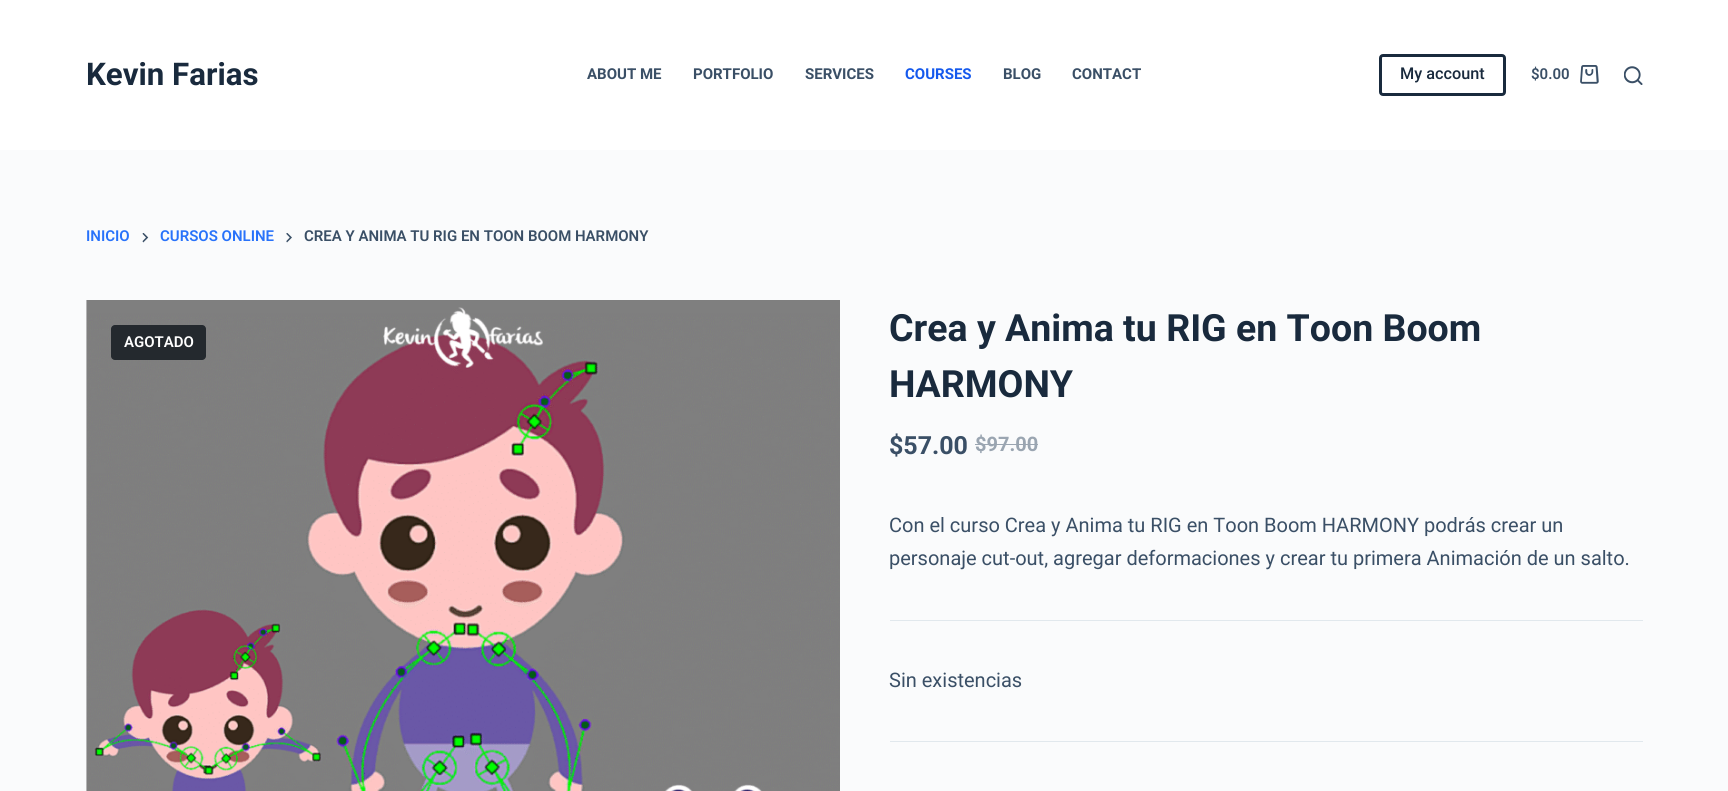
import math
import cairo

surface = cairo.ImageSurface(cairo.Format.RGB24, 1728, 791)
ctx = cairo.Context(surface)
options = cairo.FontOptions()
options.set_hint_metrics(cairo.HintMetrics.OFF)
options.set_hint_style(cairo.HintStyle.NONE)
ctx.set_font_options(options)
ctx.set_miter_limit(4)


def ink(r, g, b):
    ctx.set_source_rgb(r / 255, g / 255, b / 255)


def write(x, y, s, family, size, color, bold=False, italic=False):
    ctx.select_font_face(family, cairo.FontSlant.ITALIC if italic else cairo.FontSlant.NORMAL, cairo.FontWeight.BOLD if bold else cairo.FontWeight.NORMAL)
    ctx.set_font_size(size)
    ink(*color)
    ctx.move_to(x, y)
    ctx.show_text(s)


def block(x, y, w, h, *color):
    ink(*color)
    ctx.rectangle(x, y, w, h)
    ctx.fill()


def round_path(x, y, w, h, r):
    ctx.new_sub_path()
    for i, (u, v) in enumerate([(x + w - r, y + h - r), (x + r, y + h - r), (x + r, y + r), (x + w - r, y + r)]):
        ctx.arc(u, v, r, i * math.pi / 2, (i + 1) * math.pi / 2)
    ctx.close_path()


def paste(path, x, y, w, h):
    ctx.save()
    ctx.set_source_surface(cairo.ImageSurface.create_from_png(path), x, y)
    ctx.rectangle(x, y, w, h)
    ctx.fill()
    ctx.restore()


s1 = dict(family="Roboto", size=31.25, color=(25, 42, 61), bold=True)
s2 = dict(family="Roboto", size=15, color=(58, 79, 102), bold=True)
s3 = dict(family="Roboto", size=15, color=(21, 89, 237), bold=True)
s4 = dict(family="Roboto Medium", size=16.25, color=(25, 42, 61))
s5 = dict(family="Roboto SemiBold", size=15, color=(58, 79, 102))
s6 = dict(family="Roboto SemiBold", size=15, color=(40, 114, 250))
s7 = dict(family="Roboto SemiBold", size=15, color=(255, 255, 255))
s8 = dict(family="Roboto", size=37.5, color=(25, 42, 61), bold=True)
s9 = dict(family="Roboto", size=25, color=(58, 79, 102), bold=True)
s10 = dict(family="Roboto", size=20, color=(154, 165, 177), bold=True)
s11 = dict(family="Roboto", size=20, color=(58, 79, 102))

ink(250, 251, 252)
ctx.paint()
block(0, 0, 1728, 150, 255, 255, 255)
write(86, 85, "Kevin Farias", **s1)
write(587, 79, "ABOUT ME", **s2)
write(693, 79, "PORTFOLIO", **s2)
write(805, 79, "SERVICES", **s2)
write(905, 79, "COURSES", **s3)
write(1003, 79, "BLOG", **s2)
write(1072, 79, "CONTACT", **s2)
round_path(1380.5, 55.5, 124, 39, 2.5)
ink(25, 42, 61)
ctx.set_line_width(3)
ctx.stroke()
write(1400, 79, "My account", **s4)
write(1531, 79, "$0.00", **s5)
paste("pic1.png", 1580, 65, 19, 19)
paste("pic2.png", 1624, 66, 19, 19)
write(86, 241, "INICIO", **s6)
paste("pic3.png", 142, 233, 7, 10)
write(160, 241, "CURSOS ONLINE", **s6)
paste("pic4.png", 286, 233, 6, 10)
write(304, 241, "CREA Y ANIMA TU RIG EN TOON BOOM HARMONY", **s5)
paste("pic5.png", 86, 300, 754, 491)
ink(36, 41, 46)
round_path(111, 325, 95, 35, 4)
ctx.fill()
write(124, 347, "AGOTADO", **s7)
write(889, 341, "Crea y Anima tu RIG en Toon Boom", **s8)
write(889, 397, "HARMONY", **s8)
write(889, 454, "$57.00", **s9)
write(975, 451, "$97.00", **s10)
block(975, 444, 63, 1, 154, 165, 177)
write(889, 532, "Con el curso Crea y Anima tu RIG en Toon Boom HARMONY podrás crear un", **s11)
write(889, 565, "personaje cut-out, agregar deformaciones y crear tu primera Animación de un salto.", **s11)
block(890, 620, 753, 1, 225, 232, 237)
write(889, 687, "Sin existencias", **s11)
block(890, 741, 753, 1, 225, 232, 237)
surface.write_to_png("screenshot.png")
